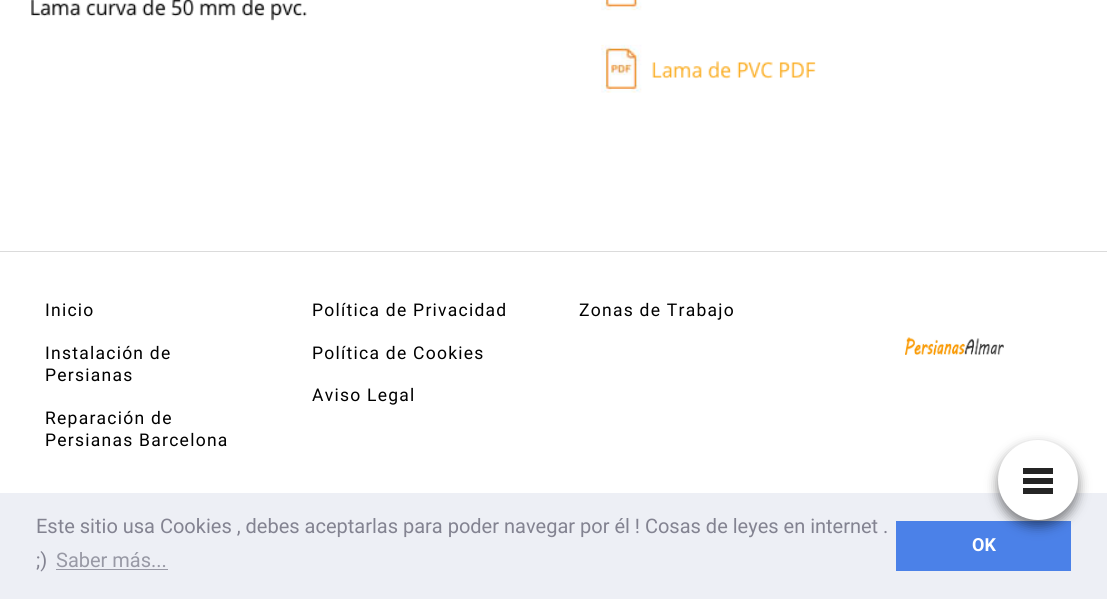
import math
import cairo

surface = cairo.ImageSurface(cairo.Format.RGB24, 1107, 599)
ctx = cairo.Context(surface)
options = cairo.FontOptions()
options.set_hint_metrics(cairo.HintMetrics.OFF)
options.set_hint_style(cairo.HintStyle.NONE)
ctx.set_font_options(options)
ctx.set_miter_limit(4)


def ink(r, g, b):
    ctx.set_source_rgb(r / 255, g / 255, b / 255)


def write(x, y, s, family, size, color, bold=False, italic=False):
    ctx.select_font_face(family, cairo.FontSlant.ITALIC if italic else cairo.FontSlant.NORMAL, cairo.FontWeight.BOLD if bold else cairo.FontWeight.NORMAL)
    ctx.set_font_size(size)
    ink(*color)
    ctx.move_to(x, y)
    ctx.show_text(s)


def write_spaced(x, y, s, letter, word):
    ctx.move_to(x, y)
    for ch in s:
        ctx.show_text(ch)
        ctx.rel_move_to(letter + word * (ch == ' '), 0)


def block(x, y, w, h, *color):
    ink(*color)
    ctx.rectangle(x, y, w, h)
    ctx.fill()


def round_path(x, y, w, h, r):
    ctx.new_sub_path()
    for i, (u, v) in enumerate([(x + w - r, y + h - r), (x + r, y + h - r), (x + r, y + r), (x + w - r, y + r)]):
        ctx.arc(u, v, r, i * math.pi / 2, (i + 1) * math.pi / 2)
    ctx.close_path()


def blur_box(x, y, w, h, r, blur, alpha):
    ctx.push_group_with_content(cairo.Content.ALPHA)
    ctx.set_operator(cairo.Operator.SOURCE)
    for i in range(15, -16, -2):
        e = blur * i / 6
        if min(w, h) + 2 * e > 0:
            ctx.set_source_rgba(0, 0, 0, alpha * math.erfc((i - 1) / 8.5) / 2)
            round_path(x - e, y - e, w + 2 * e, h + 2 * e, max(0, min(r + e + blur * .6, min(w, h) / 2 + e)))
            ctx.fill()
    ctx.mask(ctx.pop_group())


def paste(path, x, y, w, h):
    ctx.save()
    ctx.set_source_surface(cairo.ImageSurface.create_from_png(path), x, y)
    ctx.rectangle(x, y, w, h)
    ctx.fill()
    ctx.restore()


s1 = dict(family="Roboto", size=20, color=(131, 131, 145))
s2 = dict(family="Roboto", size=20, color=(152, 153, 165))
s3 = dict(family="Roboto", size=18, color=(255, 255, 255), bold=True)

ink(255, 255, 255)
ctx.paint()
paste("pic1.png", 31, 0, 785, 93)
block(0, 251, 1107, 1, 219, 219, 219)
ctx.select_font_face("Roboto")
ctx.set_font_size(17.5)
ink(0, 0, 0)
write_spaced(45, 316, "Inicio", 1.25, 0)
write_spaced(45, 359, "Instalación de", 1.25, 0)
write_spaced(45, 381, "Persianas", 1.25, 0)
write_spaced(45, 424, "Reparación de", 1.25, 0)
write_spaced(45, 446, "Persianas Barcelona", 1.25, 0)
write_spaced(312, 316, "Política de Privacidad", 1.25, 0)
write_spaced(312, 359, "Política de Cookies", 1.25, 0)
write_spaced(312, 401, "Aviso Legal", 1.25, 0)
write_spaced(579, 316, "Zonas de Trabajo", 1.25, 0)
paste("pic2.png", 905, 337, 99, 18)
block(0, 493, 1107, 106, 237, 239, 245)
write(36, 533, "Este sitio usa Cookies , debes aceptarlas para poder navegar por él ! Cosas de leyes en internet .", **s1)
write(36, 567, ";)", **s1)
write(56, 567, "Saber más...", **s2)
block(56, 569, 112, 1, 152, 153, 165)
block(896, 521, 175, 50, 75, 129, 232)
write(972, 551, "OK", **s3)
ink(0, 0, 0)
blur_box(998, 446, 80, 80, 40, 6, 0.5)
ink(255, 255, 255)
ctx.arc(1038, 480, 40, 0, 2 * math.pi)
ctx.fill()
block(1023, 478, 30, 6, 37, 37, 37)
block(1023, 468, 30, 6, 37, 37, 37)
block(1023, 488, 30, 6, 37, 37, 37)
surface.write_to_png("screenshot.png")
